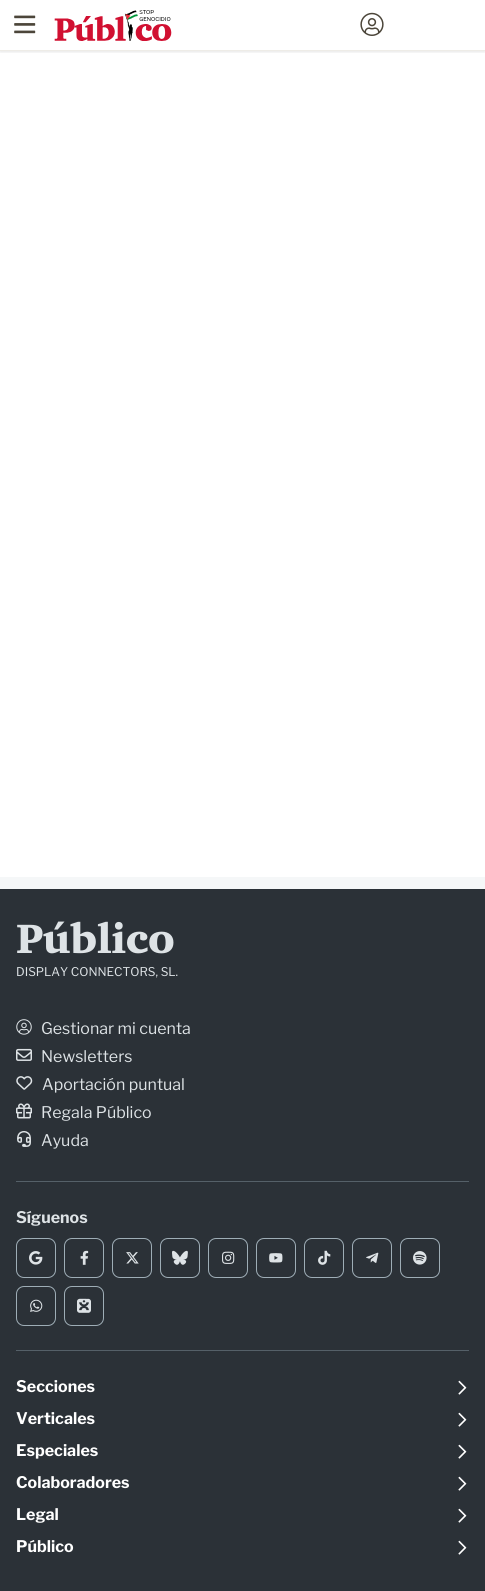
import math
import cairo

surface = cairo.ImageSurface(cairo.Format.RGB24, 485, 1591)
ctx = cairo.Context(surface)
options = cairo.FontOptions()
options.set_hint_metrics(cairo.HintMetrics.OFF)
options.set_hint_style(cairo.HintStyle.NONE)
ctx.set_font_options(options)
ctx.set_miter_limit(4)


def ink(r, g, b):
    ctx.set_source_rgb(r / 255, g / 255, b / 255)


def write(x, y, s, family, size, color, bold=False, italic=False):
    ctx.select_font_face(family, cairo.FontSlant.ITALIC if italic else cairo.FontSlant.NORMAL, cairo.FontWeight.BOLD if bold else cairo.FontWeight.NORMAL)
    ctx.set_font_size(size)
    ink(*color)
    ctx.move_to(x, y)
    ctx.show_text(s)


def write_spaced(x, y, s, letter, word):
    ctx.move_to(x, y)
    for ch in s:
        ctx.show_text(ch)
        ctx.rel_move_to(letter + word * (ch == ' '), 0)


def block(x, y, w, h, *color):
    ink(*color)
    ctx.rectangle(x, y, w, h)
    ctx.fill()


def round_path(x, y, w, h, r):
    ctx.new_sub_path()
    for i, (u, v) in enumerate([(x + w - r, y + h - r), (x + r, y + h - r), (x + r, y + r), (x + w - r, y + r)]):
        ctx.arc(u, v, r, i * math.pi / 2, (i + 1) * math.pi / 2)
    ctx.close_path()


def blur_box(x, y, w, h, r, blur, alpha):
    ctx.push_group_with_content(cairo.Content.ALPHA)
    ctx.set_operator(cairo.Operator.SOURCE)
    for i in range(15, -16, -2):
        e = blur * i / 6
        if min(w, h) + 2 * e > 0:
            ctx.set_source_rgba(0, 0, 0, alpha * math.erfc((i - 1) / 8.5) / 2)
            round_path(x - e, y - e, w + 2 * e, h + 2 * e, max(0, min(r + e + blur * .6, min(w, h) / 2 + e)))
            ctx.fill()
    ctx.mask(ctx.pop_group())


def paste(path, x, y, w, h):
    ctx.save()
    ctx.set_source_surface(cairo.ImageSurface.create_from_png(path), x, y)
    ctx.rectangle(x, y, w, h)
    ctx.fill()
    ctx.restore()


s1 = dict(family="Libre Franklin", size=12, color=(222, 227, 230))
s2 = dict(family="Libre Franklin", size=16, color=(222, 227, 230))
s3 = dict(family="Libre Franklin", size=16, color=(222, 227, 230), bold=True)
s4 = dict(family="Libre Franklin", size=16, color=(255, 255, 255), bold=True)

ink(255, 255, 255)
ctx.paint()
ctx.save()
ctx.rectangle(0, 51, 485, 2)
ctx.clip()
ink(0, 0, 0)
blur_box(0, 1, 485, 51, 0, 1.5, 0.1)
ctx.restore()
block(0, 50, 485, 1, 238, 236, 231)
paste("pic1.png", 14, 15, 22, 19)
paste("pic2.png", 54, 10, 118, 31)
paste("pic3.png", 360, 12, 24, 24)
block(0, 877, 485, 12, 245, 247, 248)
block(0, 889, 485, 702, 43, 49, 55)
ctx.select_font_face("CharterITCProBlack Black")
ctx.set_font_size(42)
ink(222, 227, 230)
write_spaced(16, 953, "Público", -0.5, 0)
write(16, 976, "DISPLAY CONNECTORS, SL.", **s1)
paste("pic4.png", 16, 1019, 16, 16)
write(41, 1034, "Gestionar mi cuenta", **s2)
paste("pic5.png", 16, 1048, 16, 13)
write(41, 1062, "Newsletters", **s2)
paste("pic6.png", 16, 1076, 17, 14)
write(42, 1090, "Aportación puntual", **s2)
paste("pic7.png", 16, 1103, 16, 16)
write(41, 1118, "Regala Público", **s2)
paste("pic8.png", 17, 1131, 14, 16)
write(41, 1146, "Ayuda", **s2)
block(16, 1181, 453, 1, 85, 96, 104)
block(16, 1350, 453, 1, 85, 96, 104)
write(16, 1223, "Síguenos", **s3)
round_path(16.5, 1238.5, 39, 39, 7.5)
ink(158, 173, 182)
ctx.set_line_width(1)
ctx.stroke()
paste("pic9.png", 29, 1251, 14, 14)
round_path(64.5, 1238.5, 39, 39, 7.5)
ctx.stroke()
paste("pic10.png", 80, 1250, 9, 15)
round_path(112.5, 1238.5, 39, 39, 7.5)
ctx.stroke()
paste("pic11.png", 126, 1252, 13, 12)
round_path(160.5, 1238.5, 39, 39, 7.5)
ctx.stroke()
paste("pic12.png", 172, 1250, 16, 15)
round_path(208.5, 1238.5, 39, 39, 7.5)
ctx.stroke()
paste("pic13.png", 222, 1251, 13, 13)
round_path(256.5, 1238.5, 39, 39, 7.5)
ctx.stroke()
paste("pic14.png", 269, 1253, 14, 10)
round_path(304.5, 1238.5, 39, 39, 7.5)
ctx.stroke()
paste("pic15.png", 318, 1250, 13, 15)
round_path(352.5, 1238.5, 39, 39, 7.5)
ctx.stroke()
paste("pic16.png", 366, 1252, 13, 11)
round_path(400.5, 1238.5, 39, 39, 7.5)
ctx.stroke()
paste("pic17.png", 413, 1251, 14, 14)
round_path(16.5, 1286.5, 39, 39, 7.5)
ctx.stroke()
paste("pic18.png", 30, 1299, 13, 13)
round_path(64.5, 1286.5, 39, 39, 7.5)
ctx.stroke()
paste("pic19.png", 77, 1298, 14, 15)
write(16, 1392, "Secciones", **s4)
paste("pic20.png", 458, 1380, 9, 15)
write(16, 1424, "Verticales", **s4)
paste("pic20.png", 458, 1412, 9, 15)
write(16, 1456, "Especiales", **s4)
paste("pic20.png", 458, 1444, 9, 15)
write(16, 1488, "Colaboradores", **s4)
paste("pic20.png", 458, 1476, 9, 15)
write(16, 1520, "Legal", **s4)
paste("pic20.png", 458, 1508, 9, 15)
write(16, 1552, "Público", **s4)
paste("pic20.png", 458, 1540, 9, 15)
surface.write_to_png("screenshot.png")
